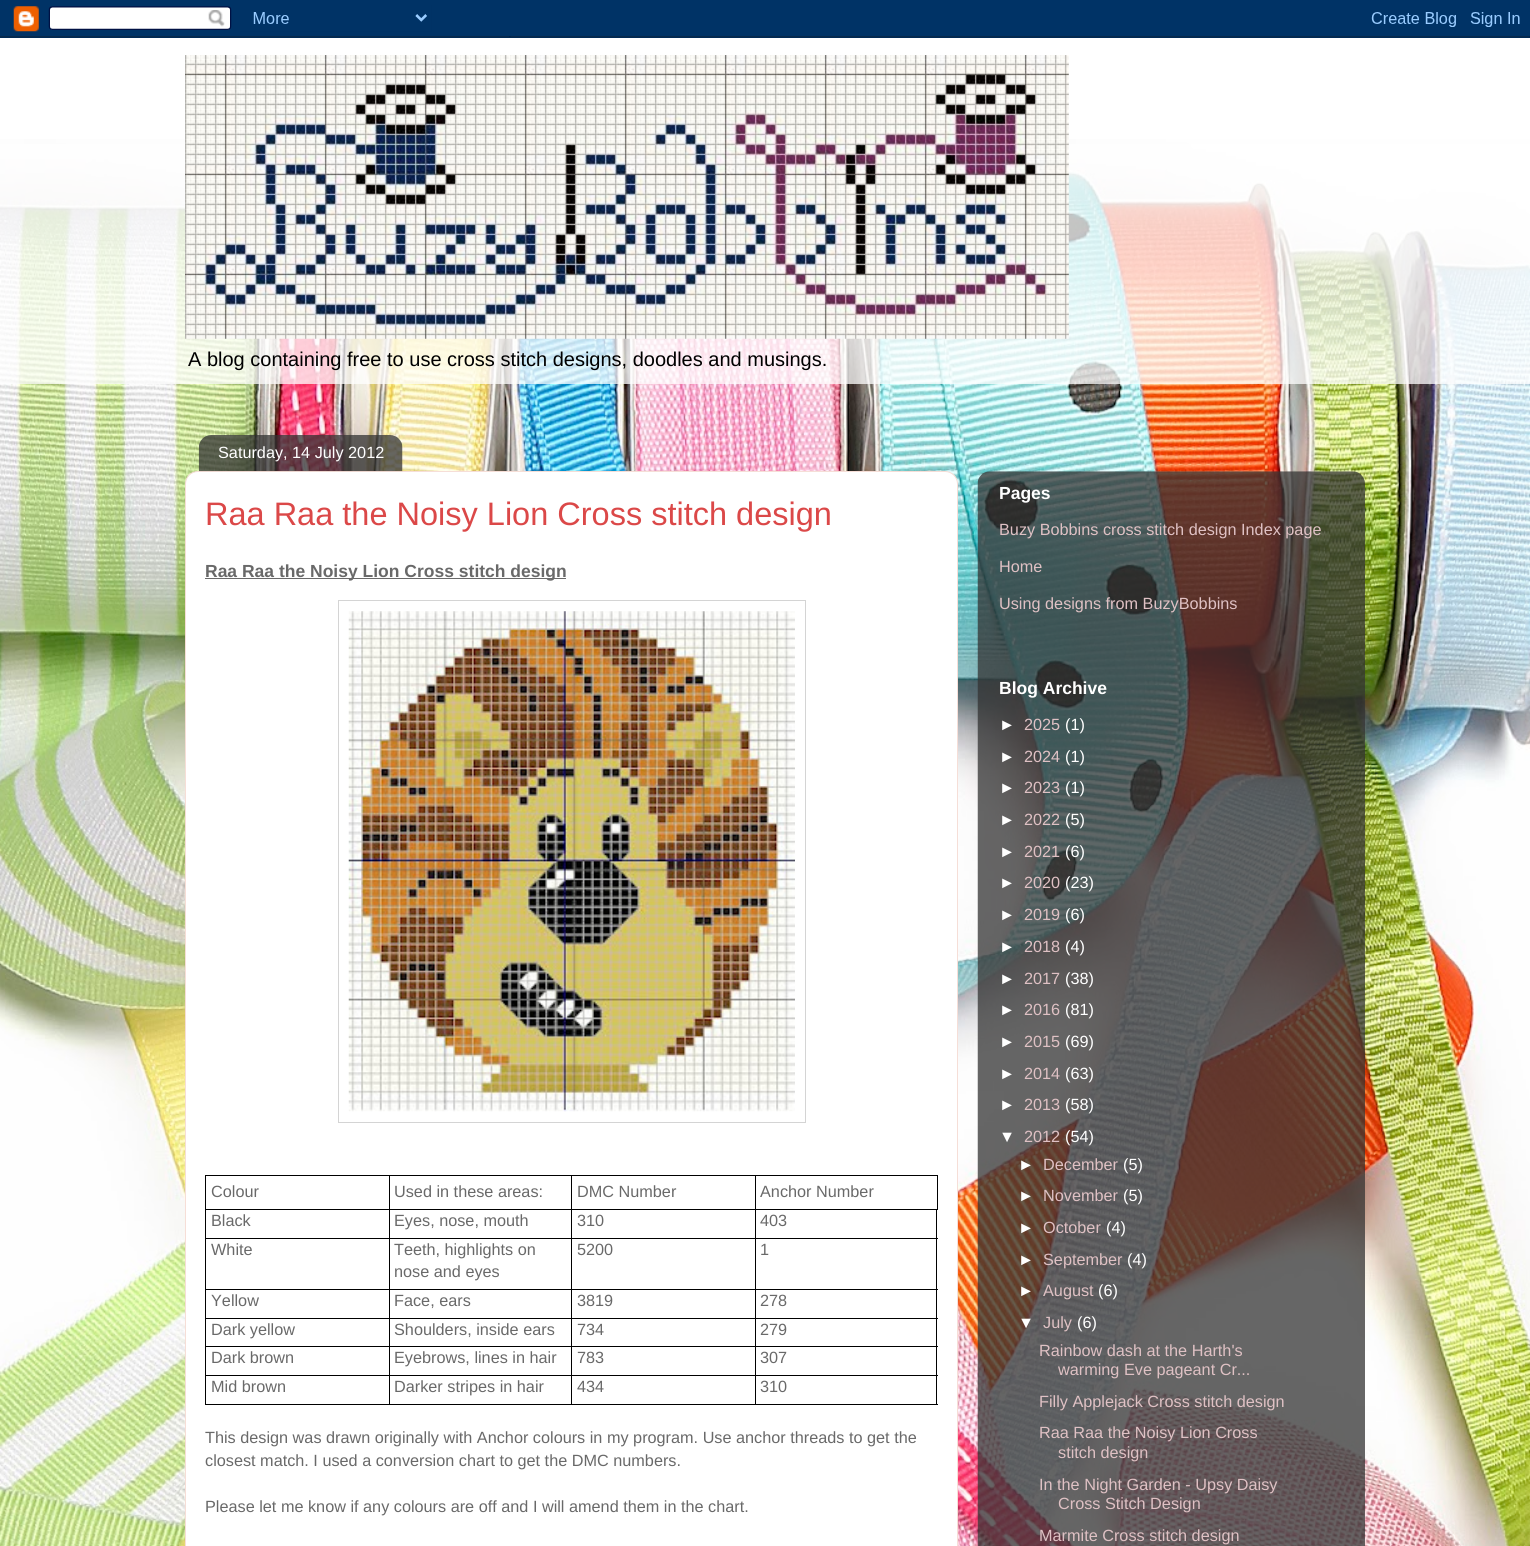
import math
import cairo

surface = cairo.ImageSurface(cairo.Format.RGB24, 1530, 1546)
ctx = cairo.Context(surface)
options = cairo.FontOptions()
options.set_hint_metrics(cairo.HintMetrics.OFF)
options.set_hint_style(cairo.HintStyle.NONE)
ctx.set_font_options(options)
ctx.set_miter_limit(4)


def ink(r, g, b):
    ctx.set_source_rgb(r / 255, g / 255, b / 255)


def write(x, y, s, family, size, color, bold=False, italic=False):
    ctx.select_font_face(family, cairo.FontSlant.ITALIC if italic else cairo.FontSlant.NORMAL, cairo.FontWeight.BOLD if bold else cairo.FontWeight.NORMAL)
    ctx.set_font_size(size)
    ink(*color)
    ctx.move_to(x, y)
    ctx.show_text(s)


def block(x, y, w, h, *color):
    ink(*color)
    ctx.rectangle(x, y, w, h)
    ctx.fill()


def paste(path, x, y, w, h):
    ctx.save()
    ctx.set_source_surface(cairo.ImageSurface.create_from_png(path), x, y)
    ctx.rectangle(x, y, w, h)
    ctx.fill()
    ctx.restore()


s1 = dict(family="Liberation Sans", size=20, color=(0, 0, 0))
s2 = dict(family="Liberation Sans", size=16.25, color=(255, 255, 255))
s3 = dict(family="Liberation Sans", size=32.5, color=(219, 72, 72))
s4 = dict(family="Liberation Sans", size=17.5, color=(105, 105, 105), bold=True)
s5 = dict(family="Liberation Sans", size=16.25, color=(105, 105, 105))
s6 = dict(family="Liberation Sans", size=17.5, color=(255, 255, 255), bold=True)
s7 = dict(family="Liberation Sans", size=16.25, color=(223, 193, 196))

ink(255, 255, 255)
ctx.paint()
paste("pic1.png", 0, 139, 1530, 1407)
paste("pic2.png", 0, 0, 1530, 38)
ctx.set_source_rgba(1, 1, 1, 0.75)
ctx.rectangle(0, 144, 1530, 240)
ctx.fill()
paste("pic3.png", 185, 55, 884, 284)
write(188, 366, "A blog containing free to use cross stitch designs, doodles and musings.", **s1)
ink(255, 255, 255)
ctx.new_path()
ctx.move_to(198, 471.5)
ctx.line_to(945, 471.5)
ctx.curve_to(952, 471.5, 957.5, 477, 957.5, 484)
ctx.line_to(957.5, 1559.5)
ctx.line_to(185.5, 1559.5)
ctx.line_to(185.5, 484)
ctx.curve_to(185.5, 477, 191, 471.5, 198, 471.5)
ctx.close_path()
ctx.fill_preserve()
ink(246, 222, 215)
ctx.set_line_width(1)
ctx.stroke()
paste("pic4.png", 198, 435, 205, 37)
write(218, 458, "Saturday, 14 July 2012", **s2)
write(205, 525, "Raa Raa the Noisy Lion Cross stitch design", **s3)
block(205, 578, 361, 1, 105, 105, 105)
write(205, 577, "Raa Raa the Noisy Lion Cross stitch design", **s4)
ctx.rectangle(338.5, 600.5, 467, 522)
ink(212, 212, 212)
ctx.stroke()
paste("pic5.png", 348, 611, 447, 501)
block(205, 1175, 550, 1, 0, 0, 0)
block(205, 1209, 550, 1, 0, 0, 0)
block(205, 1175, 1, 35, 0, 0, 0)
write(211, 1197, "Colour", **s5)
block(389, 1175, 1, 35, 0, 0, 0)
write(394, 1197, "Used in these areas:", **s5)
block(571, 1175, 1, 35, 0, 0, 0)
write(577, 1197, "DMC Number", **s5)
ctx.rectangle(755.5, 1175.5, 182, 34)
ink(0, 0, 0)
ctx.stroke()
write(760, 1197, "Anchor Number", **s5)
block(205, 1238, 550, 1, 0, 0, 0)
block(205, 1210, 1, 29, 0, 0, 0)
write(211, 1226, "Black", **s5)
block(389, 1210, 1, 29, 0, 0, 0)
write(394, 1226, "Eyes, nose, mouth", **s5)
block(571, 1210, 1, 29, 0, 0, 0)
write(577, 1226, "310", **s5)
block(936, 1210, 1, 195, 0, 0, 0)
block(755, 1238, 183, 1, 0, 0, 0)
block(755, 1210, 1, 29, 0, 0, 0)
write(760, 1226, "403", **s5)
block(205, 1289, 733, 1, 0, 0, 0)
block(205, 1239, 1, 51, 0, 0, 0)
write(211, 1255, "White", **s5)
block(389, 1239, 1, 51, 0, 0, 0)
write(394, 1255, "Teeth, highlights on", **s5)
write(394, 1277, "nose and eyes", **s5)
block(571, 1239, 1, 51, 0, 0, 0)
write(577, 1255, "5200", **s5)
block(755, 1239, 1, 51, 0, 0, 0)
write(760, 1255, "1", **s5)
block(205, 1318, 733, 1, 0, 0, 0)
block(205, 1290, 1, 29, 0, 0, 0)
write(211, 1306, "Yellow", **s5)
block(389, 1290, 1, 29, 0, 0, 0)
write(394, 1306, "Face, ears", **s5)
block(571, 1290, 1, 29, 0, 0, 0)
write(577, 1306, "3819", **s5)
block(755, 1290, 1, 29, 0, 0, 0)
write(760, 1306, "278", **s5)
block(205, 1346, 733, 1, 0, 0, 0)
block(205, 1319, 1, 29, 0, 0, 0)
write(211, 1335, "Dark yellow", **s5)
block(389, 1319, 1, 29, 0, 0, 0)
write(394, 1335, "Shoulders, inside ears", **s5)
block(571, 1319, 1, 29, 0, 0, 0)
write(577, 1335, "734", **s5)
block(755, 1319, 1, 29, 0, 0, 0)
write(760, 1335, "279", **s5)
block(205, 1375, 733, 1, 0, 0, 0)
block(205, 1348, 1, 28, 0, 0, 0)
write(211, 1363, "Dark brown", **s5)
block(389, 1348, 1, 28, 0, 0, 0)
write(394, 1363, "Eyebrows, lines in hair", **s5)
block(571, 1348, 1, 28, 0, 0, 0)
write(577, 1363, "783", **s5)
block(755, 1348, 1, 28, 0, 0, 0)
write(760, 1363, "307", **s5)
block(205, 1404, 733, 1, 0, 0, 0)
block(205, 1376, 1, 29, 0, 0, 0)
write(211, 1392, "Mid brown", **s5)
block(389, 1376, 1, 29, 0, 0, 0)
write(394, 1392, "Darker stripes in hair", **s5)
block(571, 1376, 1, 29, 0, 0, 0)
write(577, 1392, "434", **s5)
block(755, 1376, 1, 29, 0, 0, 0)
write(760, 1392, "310", **s5)
write(205, 1443, "This design was drawn originally with Anchor colours in my program. Use anchor threads to get the", **s5)
write(205, 1466, "closest match. I used a conversion chart to get the DMC numbers.", **s5)
write(205, 1512, "Please let me know if any colours are off and I will amend them in the chart.", **s5)
paste("pic6.png", 977, 471, 388, 1075)
write(999, 499, "Pages", **s6)
write(999, 535, "Buzy Bobbins cross stitch design Index page", **s7)
write(999, 572, "Home", **s7)
write(999, 609, "Using designs from BuzyBobbins", **s7)
write(999, 694, "Blog Archive", **s6)
write(999, 730, "►", **s2)
write(1024, 730, "2025", **s7)
write(1065, 730, "(1)", **s2)
write(999, 762, "►", **s2)
write(1024, 762, "2024", **s7)
write(1065, 762, "(1)", **s2)
write(999, 793, "►", **s2)
write(1024, 793, "2023", **s7)
write(1065, 793, "(1)", **s2)
write(999, 825, "►", **s2)
write(1024, 825, "2022", **s7)
write(1065, 825, "(5)", **s2)
write(999, 857, "►", **s2)
write(1024, 857, "2021", **s7)
write(1065, 857, "(6)", **s2)
write(999, 888, "►", **s2)
write(1024, 888, "2020", **s7)
write(1065, 888, "(23)", **s2)
write(999, 920, "►", **s2)
write(1024, 920, "2019", **s7)
write(1065, 920, "(6)", **s2)
write(999, 952, "►", **s2)
write(1024, 952, "2018", **s7)
write(1065, 952, "(4)", **s2)
write(999, 984, "►", **s2)
write(1024, 984, "2017", **s7)
write(1065, 984, "(38)", **s2)
write(999, 1015, "►", **s2)
write(1024, 1015, "2016", **s7)
write(1065, 1015, "(81)", **s2)
write(999, 1047, "►", **s2)
write(1024, 1047, "2015", **s7)
write(1065, 1047, "(69)", **s2)
write(999, 1079, "►", **s2)
write(1024, 1079, "2014", **s7)
write(1065, 1079, "(63)", **s2)
write(999, 1110, "►", **s2)
write(1024, 1110, "2013", **s7)
write(1065, 1110, "(58)", **s2)
write(999, 1142, "▼", **s2)
write(1024, 1142, "2012", **s7)
write(1065, 1142, "(54)", **s2)
write(1018, 1170, "►", **s2)
write(1043, 1170, "December", **s7)
write(1123, 1170, "(5)", **s2)
write(1018, 1201, "►", **s2)
write(1043, 1201, "November", **s7)
write(1123, 1201, "(5)", **s2)
write(1018, 1233, "►", **s2)
write(1043, 1233, "October", **s7)
write(1106, 1233, "(4)", **s2)
write(1018, 1265, "►", **s2)
write(1043, 1265, "September", **s7)
write(1127, 1265, "(4)", **s2)
write(1018, 1296, "►", **s2)
write(1043, 1296, "August", **s7)
write(1098, 1296, "(6)", **s2)
write(1018, 1328, "▼", **s2)
write(1043, 1328, "July", **s7)
write(1077, 1328, "(6)", **s2)
write(1039, 1356, "Rainbow dash at the Harth's", **s7)
write(1058, 1375, "warming Eve pageant Cr...", **s7)
write(1039, 1407, "Filly Applejack Cross stitch design", **s7)
write(1039, 1438, "Raa Raa the Noisy Lion Cross", **s7)
write(1058, 1458, "stitch design", **s7)
write(1039, 1490, "In the Night Garden - Upsy Daisy", **s7)
write(1058, 1509, "Cross Stitch Design", **s7)
write(1039, 1541, "Marmite Cross stitch design", **s7)
surface.write_to_png("screenshot.png")
